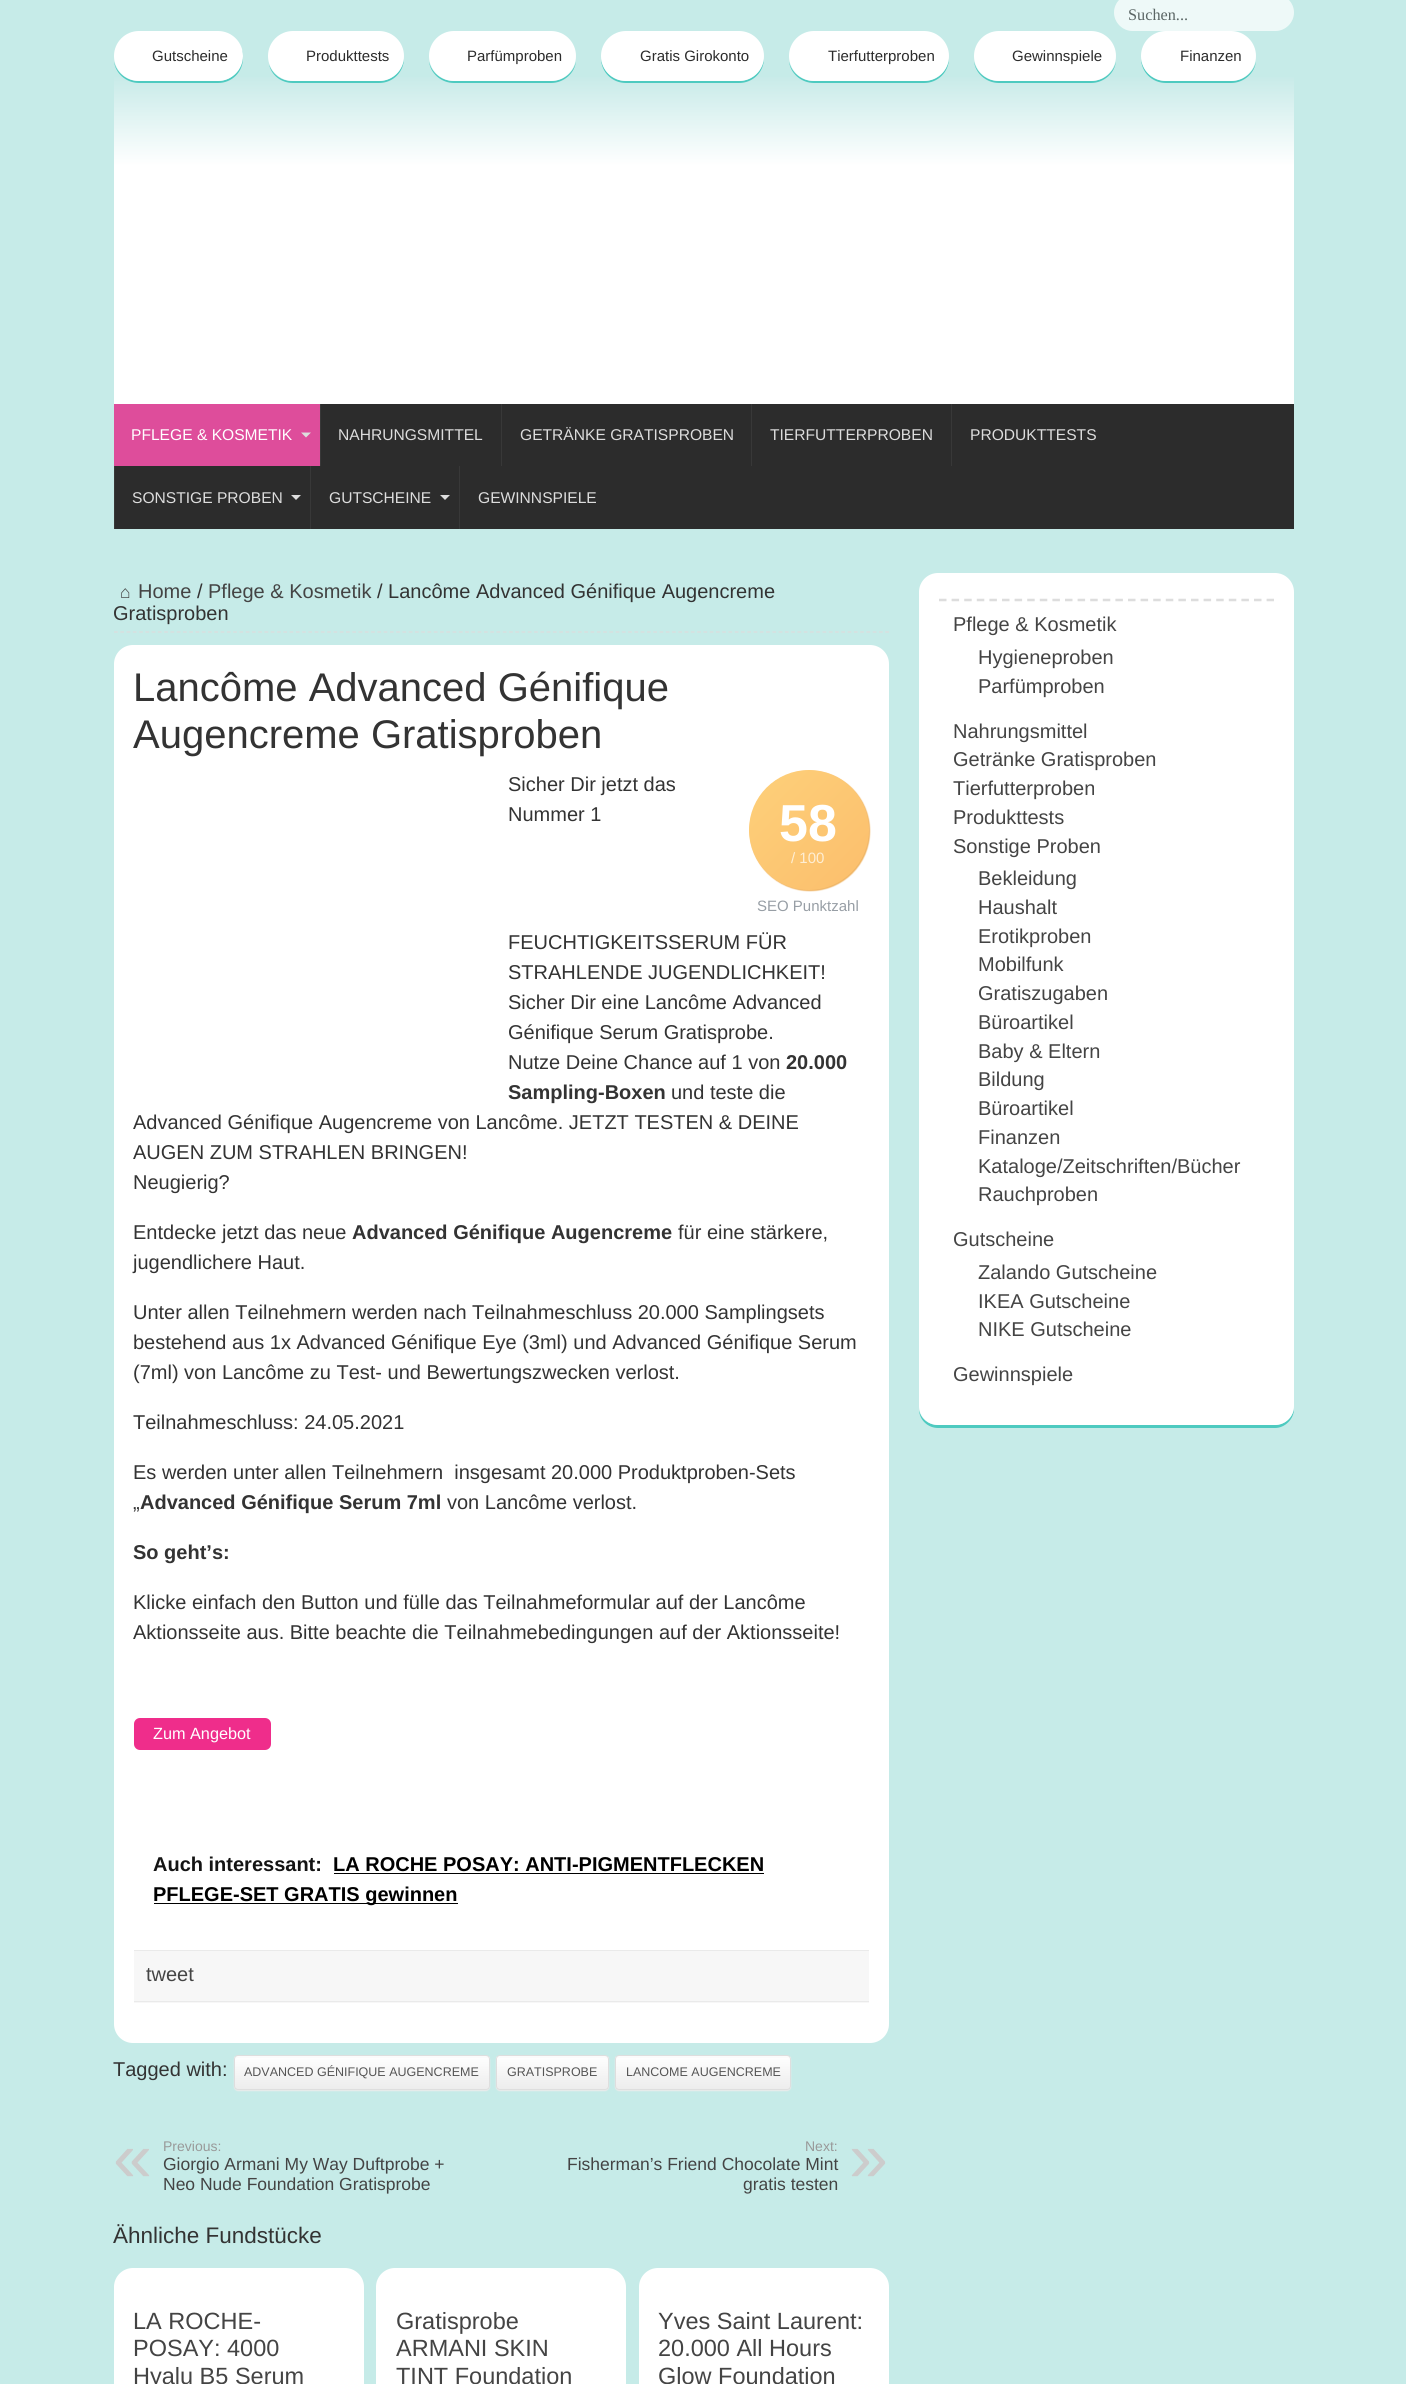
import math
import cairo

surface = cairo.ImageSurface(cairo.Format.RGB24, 1406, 2384)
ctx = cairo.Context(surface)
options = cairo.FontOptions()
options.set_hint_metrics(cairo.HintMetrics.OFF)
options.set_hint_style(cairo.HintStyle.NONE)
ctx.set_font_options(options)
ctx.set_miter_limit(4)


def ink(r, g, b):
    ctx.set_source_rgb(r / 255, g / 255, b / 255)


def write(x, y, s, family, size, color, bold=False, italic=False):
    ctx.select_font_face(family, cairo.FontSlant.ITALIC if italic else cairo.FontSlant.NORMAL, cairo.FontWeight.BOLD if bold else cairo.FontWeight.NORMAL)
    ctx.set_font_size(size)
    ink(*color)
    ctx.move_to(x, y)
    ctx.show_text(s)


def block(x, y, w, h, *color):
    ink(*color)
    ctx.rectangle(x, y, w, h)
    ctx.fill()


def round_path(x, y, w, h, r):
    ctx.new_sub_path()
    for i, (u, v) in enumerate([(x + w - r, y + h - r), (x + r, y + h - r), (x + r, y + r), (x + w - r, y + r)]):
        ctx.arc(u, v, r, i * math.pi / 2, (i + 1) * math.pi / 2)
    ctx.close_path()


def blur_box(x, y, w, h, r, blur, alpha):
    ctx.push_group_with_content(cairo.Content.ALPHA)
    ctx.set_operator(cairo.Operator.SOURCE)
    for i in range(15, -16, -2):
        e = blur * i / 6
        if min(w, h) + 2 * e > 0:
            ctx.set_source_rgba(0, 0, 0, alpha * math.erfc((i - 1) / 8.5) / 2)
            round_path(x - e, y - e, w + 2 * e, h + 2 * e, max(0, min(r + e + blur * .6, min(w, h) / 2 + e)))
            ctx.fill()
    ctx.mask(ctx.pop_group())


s1 = dict(family="Liberation Serif", size=16.25, color=(90, 101, 100))
s2 = dict(family="Liberation Sans", size=15, color=(44, 44, 44))
s3 = dict(family="Liberation Sans", size=15.6, color=(255, 255, 255))
s4 = dict(family="Liberation Sans", size=15.6, color=(221, 221, 221))
s5 = dict(family="Liberation Serif", size=17.5, color=(68, 68, 68))
s6 = dict(family="Liberation Sans", size=20, color=(68, 68, 68))
s7 = dict(family="Liberation Sans", size=20, color=(51, 51, 51))
s8 = dict(family="Liberation Sans", size=40, color=(51, 51, 51))
s9 = dict(family="Liberation Sans", size=20, color=(51, 51, 51), bold=True)
s10 = dict(family="Liberation Sans", size=52, color=(255, 255, 255), bold=True)
s11 = dict(family="Liberation Sans", size=15, color=(254, 238, 212))
s12 = dict(family="Liberation Sans", size=15, color=(151, 158, 165))
s13 = dict(family="Liberation Sans", size=16.25, color=(255, 255, 255))
s14 = dict(family="Liberation Sans", size=20, color=(20, 20, 20), bold=True)
s15 = dict(family="Liberation Sans", size=20, color=(0, 0, 0), bold=True)
s16 = dict(family="Liberation Sans", size=12.5, color=(85, 85, 85))
s17 = dict(family="Liberation Sans", size=14, color=(153, 153, 153))
s18 = dict(family="Liberation Sans", size=70, color=(204, 204, 204))
s19 = dict(family="Liberation Sans", size=17.5, color=(68, 68, 68))
s20 = dict(family="Liberation Sans", size=22.5, color=(51, 51, 51))
s21 = dict(family="Liberation Sans", size=23.5, color=(68, 68, 68))

ink(198, 235, 232)
ctx.paint()
ink(238, 249, 248)
ctx.new_path()
ctx.move_to(1132.5, -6)
ctx.line_to(1256, -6)
ctx.line_to(1256, 31)
ctx.line_to(1132.5, 31)
ctx.curve_to(1122.5, 31, 1114, 22.5, 1114, 12.5)
ctx.curve_to(1114, 2.5, 1122.5, -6, 1132.5, -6)
ctx.close_path()
ctx.fill()
write(1128, 20, "Suchen...", **s1)
ink(238, 249, 248)
ctx.new_path()
ctx.move_to(1256, -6)
ctx.line_to(1275.5, -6)
ctx.curve_to(1285.5, -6, 1294, 2.5, 1294, 12.5)
ctx.curve_to(1294, 22.5, 1285.5, 31, 1275.5, 31)
ctx.line_to(1256, 31)
ctx.close_path()
ctx.fill()
gradient = cairo.LinearGradient(704, 529, 704, 75)
gradient.add_color_stop_rgba(0.8, 1, 1, 1, 1)
gradient.add_color_stop_rgba(1, 0.78, 0.918, 0.91, 1)
ctx.set_source(gradient)
ctx.rectangle(114, 77, 1180, 327)
ctx.fill()
ink(78, 202, 192)
ctx.new_path()
ctx.move_to(114, 61)
ctx.curve_to(115, 73, 126, 83, 139, 83)
ctx.line_to(218, 83)
ctx.curve_to(232, 83, 243, 72, 243, 58)
ctx.curve_to(243, 55, 243, 53, 242, 50)
ctx.line_to(242, 56)
ctx.curve_to(242, 70, 231, 81, 218, 81)
ctx.line_to(139, 81)
ctx.curve_to(126, 81, 116, 72, 114, 61)
ctx.close_path()
ctx.fill()
ink(255, 255, 255)
round_path(114, 31, 129, 50, 25)
ctx.fill()
write(152, 61, "Gutscheine", **s2)
ink(78, 202, 192)
ctx.new_path()
ctx.move_to(269, 64)
ctx.curve_to(271, 75, 281, 83, 293, 83)
ctx.line_to(379, 83)
ctx.curve_to(393, 83, 404, 72, 404, 58)
ctx.line_to(404, 54)
ctx.line_to(404, 56)
ctx.curve_to(404, 70, 393, 81, 379, 81)
ctx.line_to(292, 81)
ctx.curve_to(281, 81, 272, 74, 269, 64)
ctx.close_path()
ctx.fill()
ink(255, 255, 255)
round_path(268, 31, 136, 50, 25)
ctx.fill()
write(306, 61, "Produkttests", **s2)
ink(78, 202, 192)
ctx.new_path()
ctx.move_to(429, 61)
ctx.curve_to(430, 73, 441, 83, 454, 83)
ctx.line_to(551, 83)
ctx.curve_to(564, 83, 575, 73, 576, 61)
ctx.curve_to(574, 72, 564, 81, 551, 81)
ctx.line_to(454, 81)
ctx.curve_to(441, 81, 431, 72, 429, 61)
ctx.close_path()
ctx.fill()
ink(255, 255, 255)
round_path(429, 31, 147, 50, 25)
ctx.fill()
write(467, 61, "Parfümproben", **s2)
ink(78, 202, 192)
ctx.new_path()
ctx.move_to(601, 54)
ctx.line_to(601, 58)
ctx.curve_to(601, 72, 612, 83, 626, 83)
ctx.line_to(739, 83)
ctx.curve_to(753, 83, 764, 72, 764, 58)
ctx.line_to(764, 54)
ctx.line_to(764, 56)
ctx.curve_to(764, 70, 753, 81, 739, 81)
ctx.line_to(626, 81)
ctx.curve_to(612, 81, 601, 70, 601, 56)
ctx.close_path()
ctx.fill()
ink(255, 255, 255)
round_path(601, 31, 163, 50, 25)
ctx.fill()
write(640, 61, "Gratis Girokonto", **s2)
ink(78, 202, 192)
ctx.new_path()
ctx.move_to(789, 61)
ctx.curve_to(790, 73, 801, 83, 814, 83)
ctx.line_to(924, 83)
ctx.curve_to(938, 83, 949, 72, 949, 58)
ctx.line_to(949, 54)
ctx.line_to(949, 56)
ctx.curve_to(949, 70, 938, 81, 924, 81)
ctx.line_to(814, 81)
ctx.curve_to(801, 81, 791, 72, 789, 61)
ctx.close_path()
ctx.fill()
ink(255, 255, 255)
round_path(789, 31, 160, 50, 25)
ctx.fill()
write(828, 61, "Tierfutterproben", **s2)
ink(78, 202, 192)
ctx.new_path()
ctx.move_to(974, 61)
ctx.curve_to(975, 73, 986, 83, 999, 83)
ctx.line_to(1091, 83)
ctx.curve_to(1104, 83, 1115, 73, 1116, 61)
ctx.curve_to(1114, 72, 1104, 81, 1091, 81)
ctx.line_to(999, 81)
ctx.curve_to(986, 81, 976, 72, 974, 61)
ctx.close_path()
ctx.fill()
ink(255, 255, 255)
round_path(974, 31, 142, 50, 25)
ctx.fill()
write(1012, 61, "Gewinnspiele", **s2)
ink(78, 202, 192)
ctx.new_path()
ctx.move_to(1141, 54)
ctx.line_to(1141, 58)
ctx.curve_to(1141, 72, 1152, 83, 1166, 83)
ctx.line_to(1231, 83)
ctx.curve_to(1244, 83, 1255, 73, 1256, 61)
ctx.curve_to(1254, 72, 1244, 81, 1231, 81)
ctx.line_to(1166, 81)
ctx.curve_to(1152, 81, 1141, 70, 1141, 56)
ctx.close_path()
ctx.fill()
ink(255, 255, 255)
round_path(1141, 31, 115, 50, 25)
ctx.fill()
write(1180, 61, "Finanzen", **s2)
block(115, 404, 1179, 125, 44, 44, 44)
block(114, 404, 206, 62, 222, 77, 155)
write(131, 440, "PFLEGE & KOSMETIK", **s3)
ink(221, 221, 221)
ctx.new_path()
ctx.move_to(301, 432.5)
ctx.line_to(311, 432.5)
ctx.line_to(306, 437.5)
ctx.close_path()
ctx.fill()
block(320, 404, 1, 62, 56, 56, 56)
write(338, 440, "NAHRUNGSMITTEL", **s4)
block(501, 404, 1, 62, 56, 56, 56)
write(520, 440, "GETRÄNKE GRATISPROBEN", **s4)
block(751, 404, 1, 62, 56, 56, 56)
write(770, 440, "TIERFUTTERPROBEN", **s4)
block(951, 404, 1, 62, 56, 56, 56)
write(970, 440, "PRODUKTTESTS", **s4)
block(114, 466, 1, 63, 56, 56, 56)
write(132, 503, "SONSTIGE PROBEN", **s4)
ctx.new_path()
ctx.move_to(291, 495)
ctx.line_to(301, 495)
ctx.line_to(296, 500)
ctx.close_path()
ctx.fill()
block(310, 466, 1, 63, 56, 56, 56)
write(329, 503, "GUTSCHEINE", **s4)
ctx.new_path()
ctx.move_to(440, 495)
ctx.line_to(450, 495)
ctx.line_to(445, 500)
ctx.close_path()
ctx.fill()
block(459, 466, 1, 63, 56, 56, 56)
write(478, 503, "GEWINNSPIELE", **s4)
ctx.new_path()
ctx.move_to(114, 632)
ctx.line_to(889, 632)
ctx.set_line_width(1.2)
ctx.set_dash([3.75, 2.52])
ctx.stroke()
write(120, 598, "⌂", **s5)
write(138, 598, "Home", **s6)
write(197, 598, "/", **s7)
write(208, 598, "Pflege & Kosmetik", **s6)
write(377, 598, "/ Lancôme Advanced Génifique Augencreme", **s7)
write(113, 620, "Gratisproben", **s7)
ink(255, 255, 255)
round_path(114, 645, 775, 1398, 19)
ctx.fill()
write(133, 701, "Lancôme Advanced Génifique", **s8)
write(133, 748, "Augencreme Gratisproben", **s8)
write(508, 791, "Sicher Dir jetzt das", **s7)
write(508, 821, "Nummer 1", **s7)
write(508, 949, "FEUCHTIGKEITSSERUM FÜR", **s7)
write(508, 979, "STRAHLENDE JUGENDLICHKEIT!", **s7)
write(508, 1009, "Sicher Dir eine Lancôme Advanced", **s7)
write(508, 1039, "Génifique Serum Gratisprobe.", **s7)
write(508, 1069, "Nutze Deine Chance auf 1 von", **s7)
write(786, 1069, "20.000", **s9)
write(508, 1099, "Sampling-Boxen", **s9)
write(671, 1099, "und teste die", **s7)
write(133, 1129, "Advanced Génifique Augencreme von Lancôme. JETZT TESTEN & DEINE", **s7)
write(133, 1159, "AUGEN ZUM STRAHLEN BRINGEN!", **s7)
write(133, 1189, "Neugierig?", **s7)
ink(239, 180, 99)
blur_box(750, 771, 120, 120, 60, 0.5, 1)
gradient = cairo.LinearGradient(749, 770, 869, 890)
gradient.add_color_stop_rgba(0, 0.992, 0.816, 0.478, 1)
gradient.add_color_stop_rgba(1, 0.988, 0.745, 0.424, 1)
ctx.set_source(gradient)
ctx.arc(809, 830, 60, 0, 2 * math.pi)
ctx.fill()
write(779, 841, "58", **s10)
write(791, 863, "/ 100", **s11)
write(757, 911, "SEO Punktzahl", **s12)
write(133, 1239, "Entdecke jetzt das neue", **s7)
write(352, 1239, "Advanced Génifique Augencreme", **s9)
write(678, 1239, "für eine stärkere,", **s7)
write(133, 1269, "jugendlichere Haut.", **s7)
write(133, 1319, "Unter allen Teilnehmern werden nach Teilnahmeschluss 20.000 Samplingsets", **s7)
write(133, 1349, "bestehend aus 1x Advanced Génifique Eye (3ml) und Advanced Génifique Serum", **s7)
write(133, 1379, "(7ml) von Lancôme zu Test- und Bewertungszwecken verlost.", **s7)
write(133, 1429, "Teilnahmeschluss: 24.05.2021", **s7)
write(133, 1479, "Es werden unter allen Teilnehmern  insgesamt 20.000 Produktproben-Sets", **s7)
write(133, 1509, "„", **s7)
write(140, 1509, "Advanced Génifique Serum 7ml", **s9)
write(447, 1509, "von Lancôme verlost.", **s7)
write(133, 1559, "So geht’s:", **s9)
write(133, 1609, "Klicke einfach den Button und fülle das Teilnahmeformular auf der Lancôme", **s7)
write(133, 1639, "Aktionsseite aus. Bitte beachte die Teilnahmebedingungen auf der Aktionsseite!", **s7)
ink(239, 45, 139)
round_path(134, 1718, 137, 32, 6)
ctx.fill()
write(153, 1739, "Zum Angebot", **s13)
write(153, 1871, "Auch interessant:", **s14)
write(333, 1871, "LA ROCHE POSAY: ANTI-PIGMENTFLECKEN", **s15)
block(334, 1873, 430, 1, 0, 0, 0)
block(154, 1903, 304, 1, 0, 0, 0)
write(153, 1901, "PFLEGE-SET GRATIS gewinnen", **s15)
block(134, 1951, 735, 52, 247, 247, 247)
block(134, 1950, 735, 1, 234, 234, 234)
block(134, 2001, 735, 1, 234, 234, 234)
write(146, 1981, "tweet", **s6)
write(113, 2076, "Tagged with:", **s7)
ink(234, 234, 234)
blur_box(234, 2056, 256, 35, 4, 0.5, 1)
ctx.save()
round_path(234, 2055, 256, 35, 4)
ctx.clip()
gradient = cairo.LinearGradient(362, 2056, 362, 2089)
gradient.add_color_stop_rgba(0, 1, 1, 1, 1)
gradient.add_color_stop_rgba(0.47, 0.965, 0.965, 0.965, 1)
gradient.add_color_stop_rgba(1, 0.929, 0.929, 0.929, 1)
ctx.set_source(gradient)
ctx.rectangle(234, 2056, 256, 33)
ctx.fill()
ctx.restore()
ink(251, 251, 251)
ctx.new_path()
ctx.move_to(238, 2058)
ctx.line_to(486, 2058)
ctx.curve_to(488, 2058, 489, 2059, 489, 2060)
ctx.line_to(489, 2058)
ctx.curve_to(489, 2057, 488, 2056, 486, 2056)
ctx.line_to(238, 2056)
ctx.curve_to(236, 2056, 235, 2057, 235, 2058)
ctx.line_to(235, 2060)
ctx.curve_to(235, 2059, 236, 2058, 238, 2058)
ctx.close_path()
ctx.fill()
round_path(234.5, 2055.5, 255, 34, 3.5)
ink(222, 222, 222)
ctx.set_line_width(1)
ctx.set_dash([])
ctx.stroke()
write(244, 2076, "ADVANCED GÉNIFIQUE AUGENCREME", **s16)
ink(234, 234, 234)
blur_box(496, 2056, 113, 35, 4, 0.5, 1)
ctx.save()
round_path(496, 2055, 113, 35, 4)
ctx.clip()
gradient = cairo.LinearGradient(553, 2056, 553, 2089)
gradient.add_color_stop_rgba(0, 1, 1, 1, 1)
gradient.add_color_stop_rgba(0.47, 0.965, 0.965, 0.965, 1)
gradient.add_color_stop_rgba(1, 0.929, 0.929, 0.929, 1)
ctx.set_source(gradient)
ctx.rectangle(496, 2056, 113, 33)
ctx.fill()
ctx.restore()
ink(251, 251, 251)
ctx.new_path()
ctx.move_to(500, 2058)
ctx.line_to(605, 2058)
ctx.curve_to(606, 2058, 608, 2059, 608, 2060)
ctx.line_to(608, 2058)
ctx.curve_to(608, 2057, 607, 2056, 606, 2056)
ctx.line_to(500, 2056)
ctx.curve_to(499, 2056, 498, 2057, 498, 2058)
ctx.line_to(498, 2060)
ctx.curve_to(498, 2059, 499, 2058, 500, 2058)
ctx.close_path()
ctx.fill()
round_path(496.5, 2055.5, 112, 34, 3.5)
ink(222, 222, 222)
ctx.stroke()
write(507, 2076, "GRATISPROBE", **s16)
ink(234, 234, 234)
blur_box(615, 2056, 176, 35, 4, 0.5, 1)
ctx.save()
round_path(615, 2055, 176, 35, 4)
ctx.clip()
gradient = cairo.LinearGradient(703, 2056, 703, 2089)
gradient.add_color_stop_rgba(0, 1, 1, 1, 1)
gradient.add_color_stop_rgba(0.47, 0.965, 0.965, 0.965, 1)
gradient.add_color_stop_rgba(1, 0.929, 0.929, 0.929, 1)
ctx.set_source(gradient)
ctx.rectangle(615, 2056, 176, 33)
ctx.fill()
ctx.restore()
ink(251, 251, 251)
ctx.new_path()
ctx.move_to(619, 2058)
ctx.line_to(788, 2058)
ctx.curve_to(789, 2058, 790, 2059, 790, 2060)
ctx.line_to(790, 2058)
ctx.curve_to(790, 2057, 789, 2056, 788, 2056)
ctx.line_to(618, 2056)
ctx.curve_to(617, 2056, 616, 2057, 616, 2058)
ctx.line_to(616, 2060)
ctx.curve_to(616, 2059, 617, 2058, 619, 2058)
ctx.close_path()
ctx.fill()
round_path(615.5, 2055.5, 175, 34, 3.5)
ink(222, 222, 222)
ctx.stroke()
write(626, 2076, "LANCOME AUGENCREME", **s16)
write(163, 2151, "Previous:", **s17)
write(113, 2181, "«", **s18)
write(163, 2170, "Giorgio Armani My Way Duftprobe +", **s19)
write(163, 2190, "Neo Nude Foundation Gratisprobe", **s19)
write(805, 2151, "Next:", **s17)
write(567, 2170, "Fisherman’s Friend Chocolate Mint", **s19)
write(849, 2181, "»", **s18)
write(743, 2190, "gratis testen", **s19)
write(113, 2243, "Ähnliche Fundstücke", **s20)
ink(255, 255, 255)
round_path(114, 2268, 250, 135, 19)
ctx.fill()
write(133, 2329, "LA ROCHE-", **s21)
write(133, 2356, "POSAY: 4000", **s21)
write(133, 2384, "Hyalu B5 Serum", **s21)
ink(255, 255, 255)
round_path(376, 2268, 250, 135, 19)
ctx.fill()
write(396, 2329, "Gratisprobe", **s21)
write(396, 2356, "ARMANI SKIN", **s21)
write(396, 2384, "TINT Foundation", **s21)
ink(255, 255, 255)
round_path(639, 2268, 250, 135, 19)
ctx.fill()
write(658, 2329, "Yves Saint Laurent:", **s21)
write(658, 2356, "20.000 All Hours", **s21)
write(658, 2384, "Glow Foundation", **s21)
ink(78, 202, 192)
ctx.new_path()
ctx.move_to(919, 1409)
ctx.curve_to(919, 1420, 928, 1428, 938, 1428)
ctx.line_to(1275, 1428)
ctx.curve_to(1285, 1428, 1294, 1419, 1294, 1409)
ctx.line_to(1294, 591)
ctx.line_to(1294, 1406)
ctx.curve_to(1294, 1417, 1285, 1425, 1275, 1425)
ctx.line_to(938, 1425)
ctx.curve_to(928, 1425, 920, 1418, 919, 1409)
ctx.close_path()
ctx.fill()
ink(255, 255, 255)
round_path(919, 573, 375, 852, 19)
ctx.fill()
ctx.new_path()
ctx.move_to(939, 600)
ctx.line_to(1274, 600)
ink(221, 221, 221)
ctx.set_line_width(2.5)
ctx.set_dash([7.5, 5.1])
ctx.stroke()
write(953, 631, "Pflege & Kosmetik", **s6)
write(978, 664, "Hygieneproben", **s6)
write(978, 693, "Parfümproben", **s6)
write(953, 738, "Nahrungsmittel", **s6)
write(953, 766, "Getränke Gratisproben", **s6)
write(953, 795, "Tierfutterproben", **s6)
write(953, 824, "Produkttests", **s6)
write(953, 853, "Sonstige Proben", **s6)
write(978, 885, "Bekleidung", **s6)
write(978, 914, "Haushalt", **s6)
write(978, 943, "Erotikproben", **s6)
write(978, 971, "Mobilfunk", **s6)
write(978, 1000, "Gratiszugaben", **s6)
write(978, 1029, "Büroartikel", **s6)
write(978, 1058, "Baby & Eltern", **s6)
write(978, 1086, "Bildung", **s6)
write(978, 1115, "Büroartikel", **s6)
write(978, 1144, "Finanzen", **s6)
write(978, 1173, "Kataloge/Zeitschriften/Bücher", **s6)
write(978, 1201, "Rauchproben", **s6)
write(953, 1246, "Gutscheine", **s6)
write(978, 1279, "Zalando Gutscheine", **s6)
write(978, 1308, "IKEA Gutscheine", **s6)
write(978, 1336, "NIKE Gutscheine", **s6)
write(953, 1381, "Gewinnspiele", **s6)
surface.write_to_png("screenshot.png")
